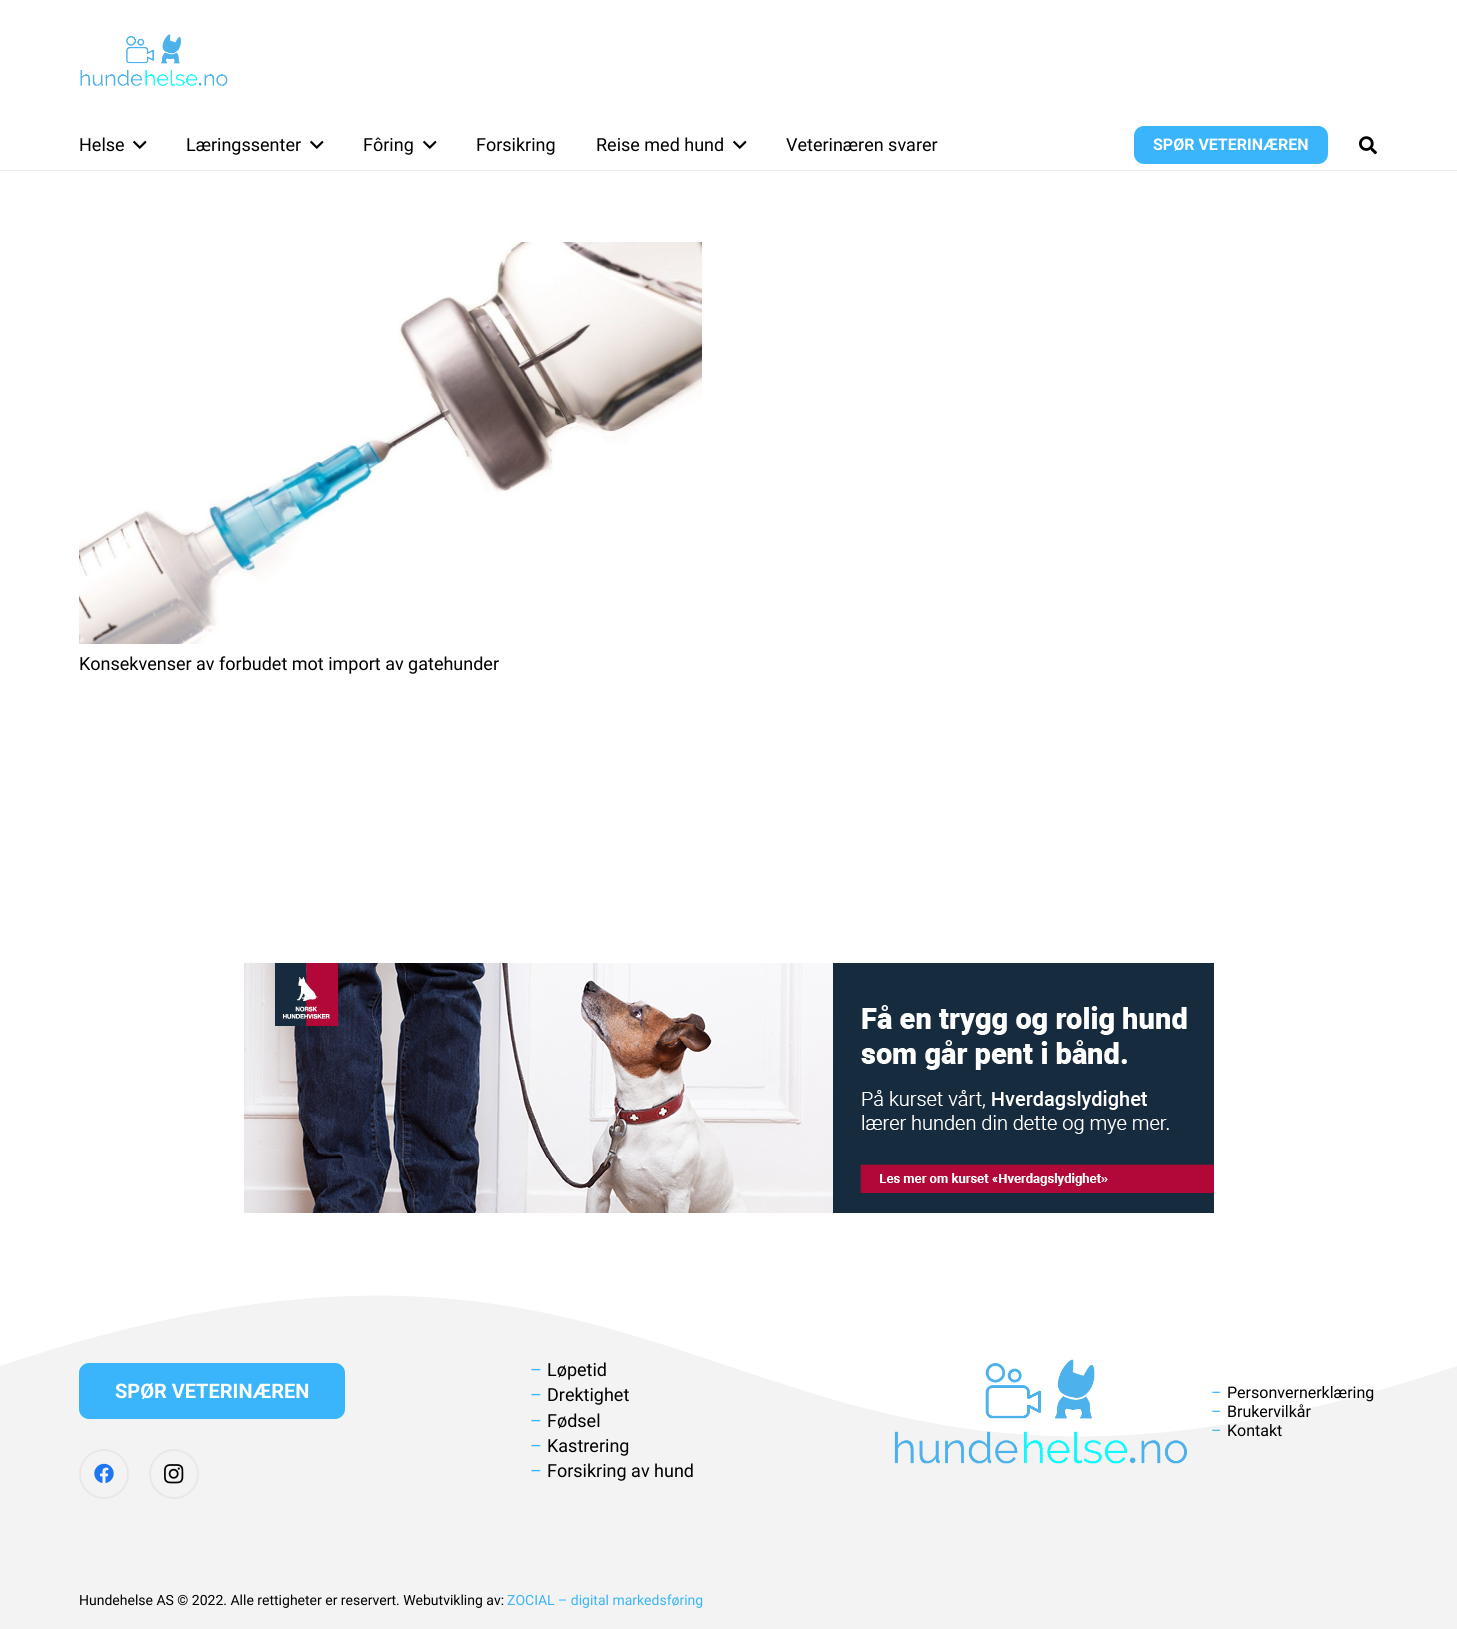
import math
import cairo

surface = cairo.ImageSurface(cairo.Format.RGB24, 1457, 1629)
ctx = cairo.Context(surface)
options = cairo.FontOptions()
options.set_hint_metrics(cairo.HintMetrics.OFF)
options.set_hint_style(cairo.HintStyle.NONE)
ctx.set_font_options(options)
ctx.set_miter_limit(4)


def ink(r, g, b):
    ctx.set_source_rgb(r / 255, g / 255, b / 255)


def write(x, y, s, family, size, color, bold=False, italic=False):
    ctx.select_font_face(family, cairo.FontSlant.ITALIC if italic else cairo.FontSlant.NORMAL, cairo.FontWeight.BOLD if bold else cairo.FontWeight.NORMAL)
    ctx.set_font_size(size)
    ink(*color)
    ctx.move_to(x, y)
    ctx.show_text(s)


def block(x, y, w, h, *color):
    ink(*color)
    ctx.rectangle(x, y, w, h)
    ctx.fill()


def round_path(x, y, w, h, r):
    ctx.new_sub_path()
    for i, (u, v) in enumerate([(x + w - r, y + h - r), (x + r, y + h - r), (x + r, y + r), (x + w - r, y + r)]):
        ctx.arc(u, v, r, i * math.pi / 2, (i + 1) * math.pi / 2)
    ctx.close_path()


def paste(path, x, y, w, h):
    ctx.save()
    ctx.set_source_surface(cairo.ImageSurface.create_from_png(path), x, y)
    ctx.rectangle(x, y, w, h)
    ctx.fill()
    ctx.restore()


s1 = dict(family="Roboto", size=18, color=(0, 0, 0))
s2 = dict(family="Roboto", size=16, color=(255, 255, 255), bold=True)
s3 = dict(family="Roboto", size=20, color=(255, 255, 255), bold=True)
s4 = dict(family="Roboto", size=18, color=(58, 181, 252))
s5 = dict(family="Roboto", size=16, color=(58, 181, 252))
s6 = dict(family="Roboto", size=16, color=(0, 0, 0))
s7 = dict(family="Roboto", size=14, color=(0, 0, 0))
s8 = dict(family="Roboto", size=14, color=(58, 181, 252))

ink(255, 255, 255)
ctx.paint()
paste("pic1.png", 80, 34, 148, 52)
block(0, 170, 1457, 1, 235, 235, 235)
write(79, 151, "Helse", **s1)
paste("pic2.png", 133, 140, 14, 9)
write(186, 151, "Læringssenter", **s1)
paste("pic2.png", 310, 140, 14, 9)
write(363, 151, "Fôring", **s1)
paste("pic2.png", 423, 140, 14, 9)
write(476, 151, "Forsikring", **s1)
write(596, 151, "Reise med hund", **s1)
paste("pic2.png", 733, 140, 14, 9)
write(786, 151, "Veterinæren svarer", **s1)
ink(58, 181, 252)
round_path(1134, 126, 194, 38, 10)
ctx.fill()
write(1153, 150, "SPØR VETERINÆREN", **s2)
paste("pic3.png", 1359, 136, 18, 19)
paste("pic4.png", 79, 242, 623, 402)
write(79, 670, "Konsekvenser av forbudet mot import av gatehunder", **s1)
paste("pic5.png", 244, 963, 970, 250)
block(0, 1295, 1457, 334, 243, 243, 243)
ink(255, 255, 255)
ctx.new_path()
ctx.move_to(1457, 1366)
ctx.curve_to(728, 1610, 728, 1122, 0, 1366)
ctx.line_to(0, 1284)
ctx.line_to(1457, 1284)
ctx.close_path()
ctx.fill()
ink(58, 181, 252)
round_path(79, 1363, 266, 56, 10)
ctx.fill()
write(115, 1398, "SPØR VETERINÆREN", **s3)
ctx.new_path()
ctx.arc(104, 1474, 24, 0, 2 * math.pi)
ink(232, 232, 232)
ctx.stroke()
paste("pic6.png", 94, 1463, 20, 20)
ctx.arc(174, 1474, 24, 0, 2 * math.pi)
ctx.stroke()
paste("pic7.png", 164, 1464, 20, 20)
write(530, 1376, "–", **s4)
write(547, 1376, "Løpetid", **s1)
write(530, 1401, "–", **s4)
write(547, 1401, "Drektighet", **s1)
write(530, 1427, "–", **s4)
write(547, 1427, "Fødsel", **s1)
write(530, 1452, "–", **s4)
write(547, 1452, "Kastrering", **s1)
write(530, 1477, "–", **s4)
write(547, 1477, "Forsikring av hund", **s1)
paste("pic8.png", 894, 1359, 294, 105)
write(1211, 1398, "–", **s5)
write(1227, 1398, "Personvernerklæring", **s6)
write(1211, 1417, "–", **s5)
write(1227, 1417, "Brukervilkår", **s6)
write(1211, 1436, "–", **s5)
write(1227, 1436, "Kontakt", **s6)
write(79, 1605, "Hundehelse AS © 2022. Alle rettigheter er reservert. Webutvikling av:", **s7)
write(507, 1605, "ZOCIAL – digital markedsføring", **s8)
surface.write_to_png("screenshot.png")
